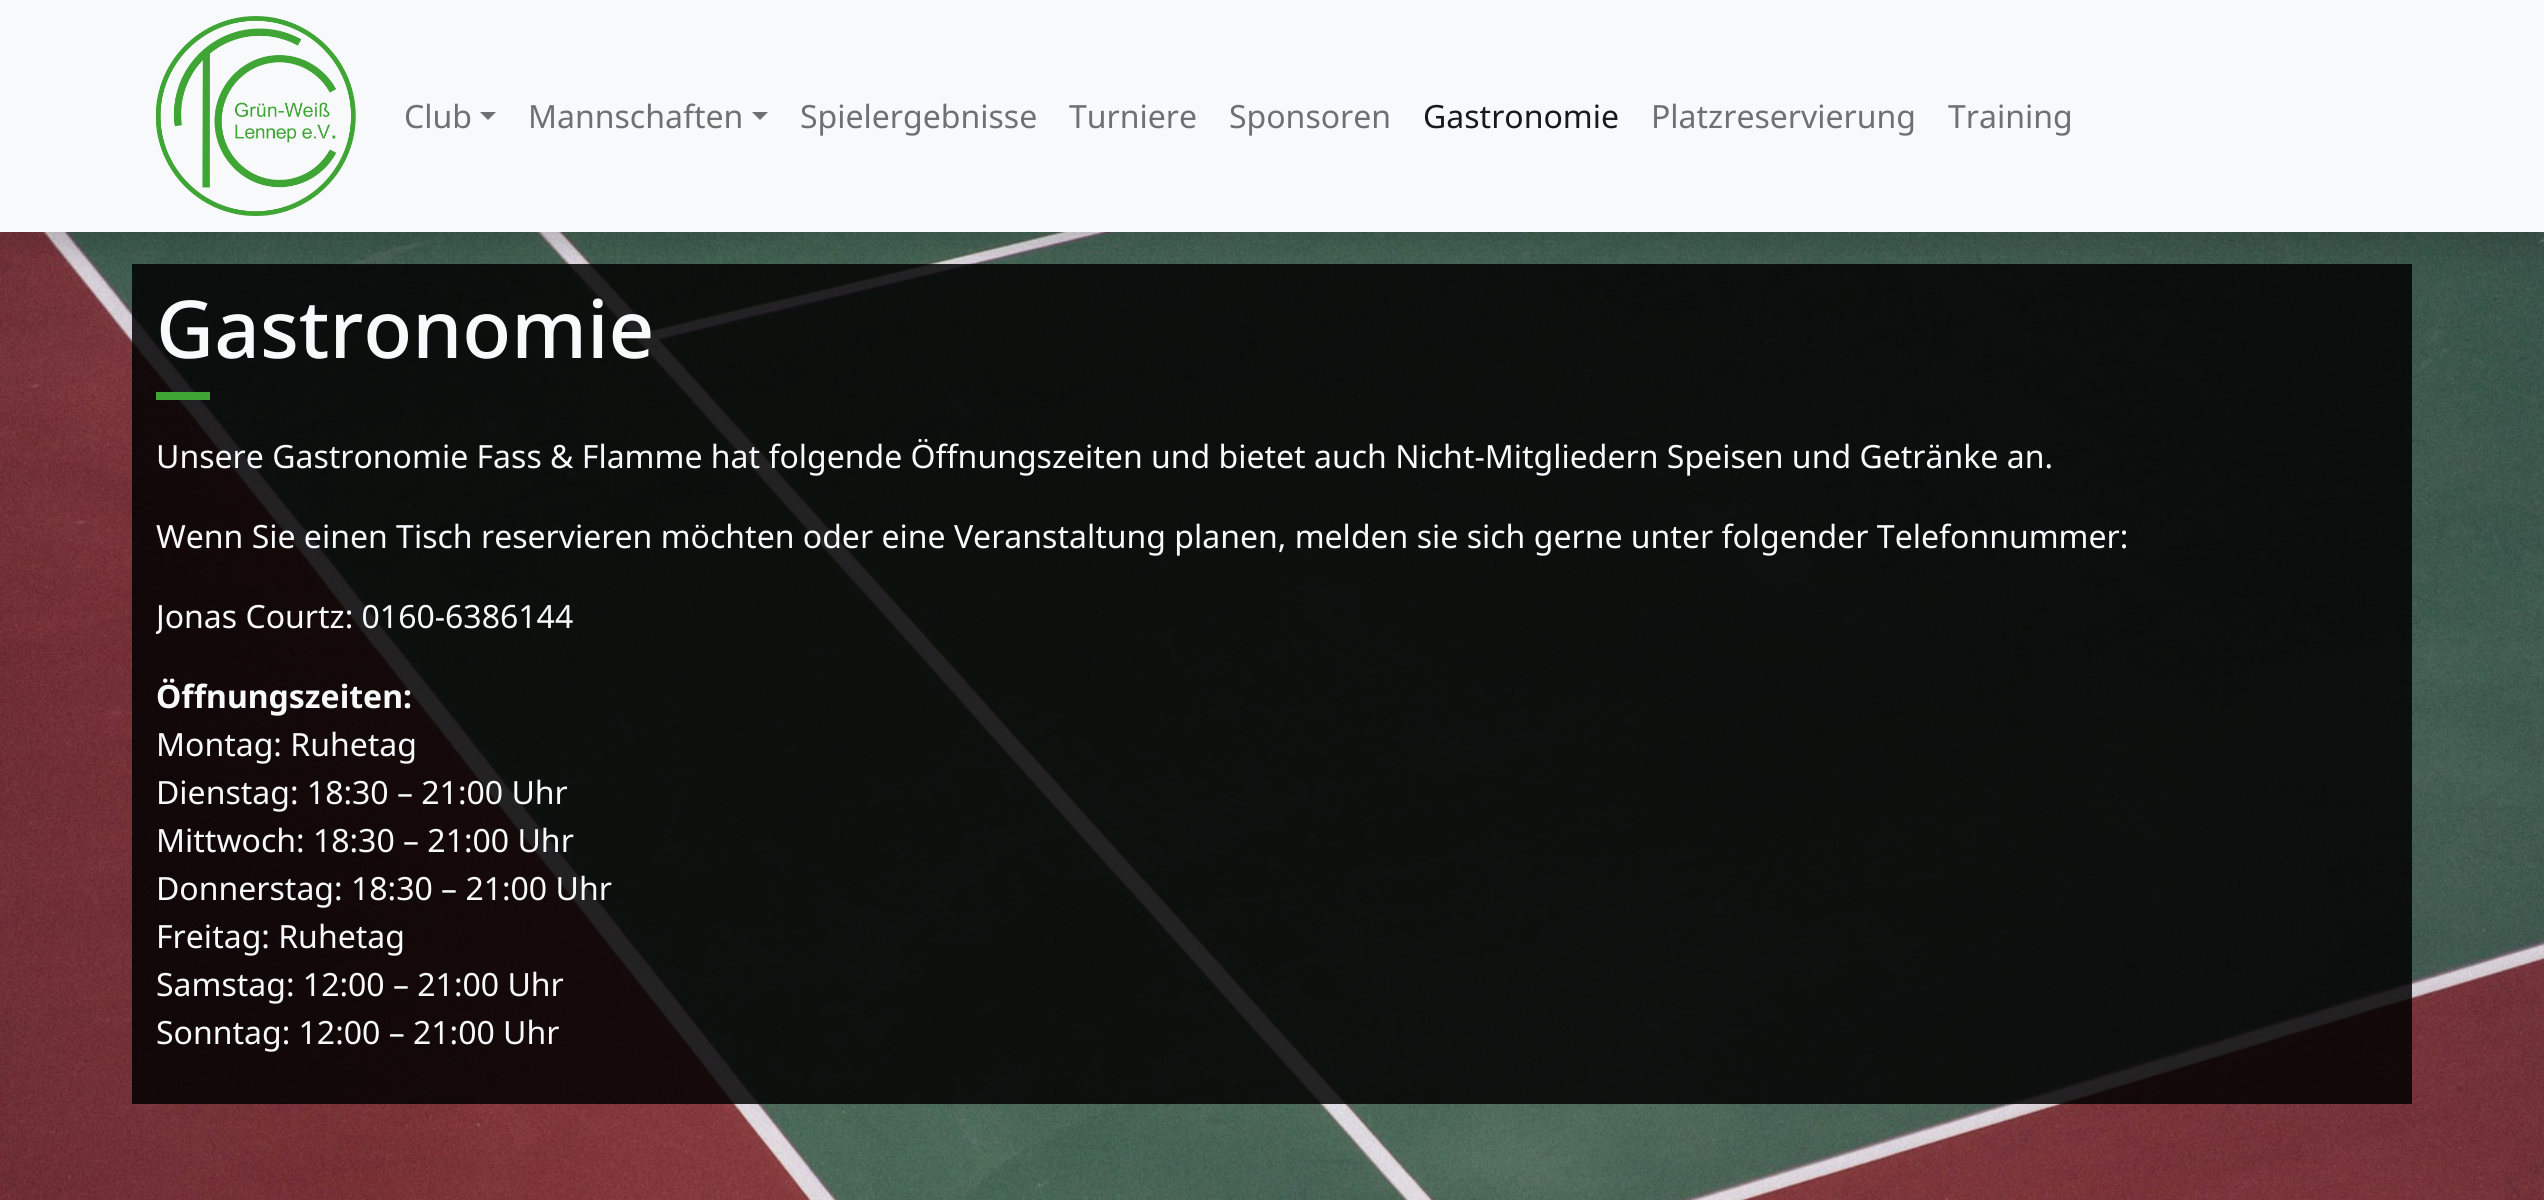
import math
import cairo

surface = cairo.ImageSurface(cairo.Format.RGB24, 2544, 1200)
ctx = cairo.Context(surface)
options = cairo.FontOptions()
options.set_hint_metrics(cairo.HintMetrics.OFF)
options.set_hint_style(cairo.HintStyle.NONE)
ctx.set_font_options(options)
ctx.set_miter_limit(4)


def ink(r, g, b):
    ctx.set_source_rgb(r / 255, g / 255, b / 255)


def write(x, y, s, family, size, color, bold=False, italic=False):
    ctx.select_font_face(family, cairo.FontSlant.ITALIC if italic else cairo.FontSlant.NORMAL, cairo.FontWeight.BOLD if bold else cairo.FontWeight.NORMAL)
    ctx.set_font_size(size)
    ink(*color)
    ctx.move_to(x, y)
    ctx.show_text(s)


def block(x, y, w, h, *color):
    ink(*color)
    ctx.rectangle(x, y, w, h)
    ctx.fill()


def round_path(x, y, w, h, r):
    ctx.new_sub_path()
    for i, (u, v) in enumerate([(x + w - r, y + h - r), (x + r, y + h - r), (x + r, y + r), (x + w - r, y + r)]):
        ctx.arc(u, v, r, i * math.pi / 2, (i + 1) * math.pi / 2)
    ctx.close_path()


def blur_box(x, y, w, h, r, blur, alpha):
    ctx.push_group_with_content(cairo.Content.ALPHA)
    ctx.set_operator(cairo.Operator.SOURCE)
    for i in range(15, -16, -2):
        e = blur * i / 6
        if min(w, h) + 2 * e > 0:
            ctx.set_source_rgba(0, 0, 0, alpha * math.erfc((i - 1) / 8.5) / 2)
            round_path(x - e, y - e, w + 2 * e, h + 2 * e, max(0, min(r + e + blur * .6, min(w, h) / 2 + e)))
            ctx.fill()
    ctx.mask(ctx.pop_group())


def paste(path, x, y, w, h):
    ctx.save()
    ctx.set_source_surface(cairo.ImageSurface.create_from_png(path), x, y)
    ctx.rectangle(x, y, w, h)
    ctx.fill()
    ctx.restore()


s1 = dict(family="Noto Sans", size=32, color=(112, 112, 113))
s2 = dict(family="Noto Sans", size=32, color=(25, 25, 25))
s3 = dict(family="Noto Sans Medium", size=80, color=(248, 249, 250))
s4 = dict(family="Noto Sans", size=32, color=(248, 249, 250))
s5 = dict(family="Noto Sans", size=32, color=(248, 249, 250), bold=True)

ink(255, 255, 255)
ctx.paint()
paste("pic2.png", 0, 232, 2544, 968)
ctx.set_source_rgba(0, 0, 0, 0.84)
ctx.rectangle(132, 264, 2280, 840)
ctx.fill()
ink(0, 0, 0)
blur_box(0, 16, 2544, 232, 0, 16, 0.15)
block(0, 0, 2544, 232, 248, 249, 250)
paste("pic1.png", 156, 16, 200, 200)
write(404, 128, "Club", **s1)
ctx.new_path()
ctx.move_to(480, 112)
ctx.line_to(496, 112)
ctx.line_to(488, 120)
ctx.close_path()
ctx.fill()
write(528, 128, "Mannschaften", **s1)
ctx.new_path()
ctx.move_to(752, 112)
ctx.line_to(768, 112)
ctx.line_to(760, 120)
ctx.close_path()
ctx.fill()
write(800, 128, "Spielergebnisse", **s1)
write(1069, 128, "Turniere", **s1)
write(1229, 128, "Sponsoren", **s1)
write(1423, 128, "Gastronomie", **s2)
write(1651, 128, "Platzreservierung", **s1)
write(1948, 128, "Training", **s1)
write(156, 358, "Gastronomie", **s3)
block(156, 392, 54, 8, 63, 165, 53)
write(156, 468, "Unsere Gastronomie Fass & Flamme hat folgende Öffnungszeiten und bietet auch Nicht-Mitgliedern Speisen und Getränke an.", **s4)
write(156, 548, "Wenn Sie einen Tisch reservieren möchten oder eine Veranstaltung planen, melden sie sich gerne unter folgender Telefonnummer:", **s4)
ctx.save()
ctx.rectangle(156, 264, 2232, 840)
ctx.clip()
write(156, 628, "Jonas Courtz: 0160-6386144", **s4)
ctx.restore()
write(156, 708, "Öffnungszeiten:", **s5)
write(156, 756, "Montag: Ruhetag", **s4)
write(156, 804, "Dienstag: 18:30 – 21:00 Uhr", **s4)
write(156, 852, "Mittwoch: 18:30 – 21:00 Uhr", **s4)
write(156, 900, "Donnerstag: 18:30 – 21:00 Uhr", **s4)
write(156, 948, "Freitag: Ruhetag", **s4)
write(156, 996, "Samstag: 12:00 – 21:00 Uhr", **s4)
write(156, 1044, "Sonntag: 12:00 – 21:00 Uhr", **s4)
surface.write_to_png("screenshot.png")
